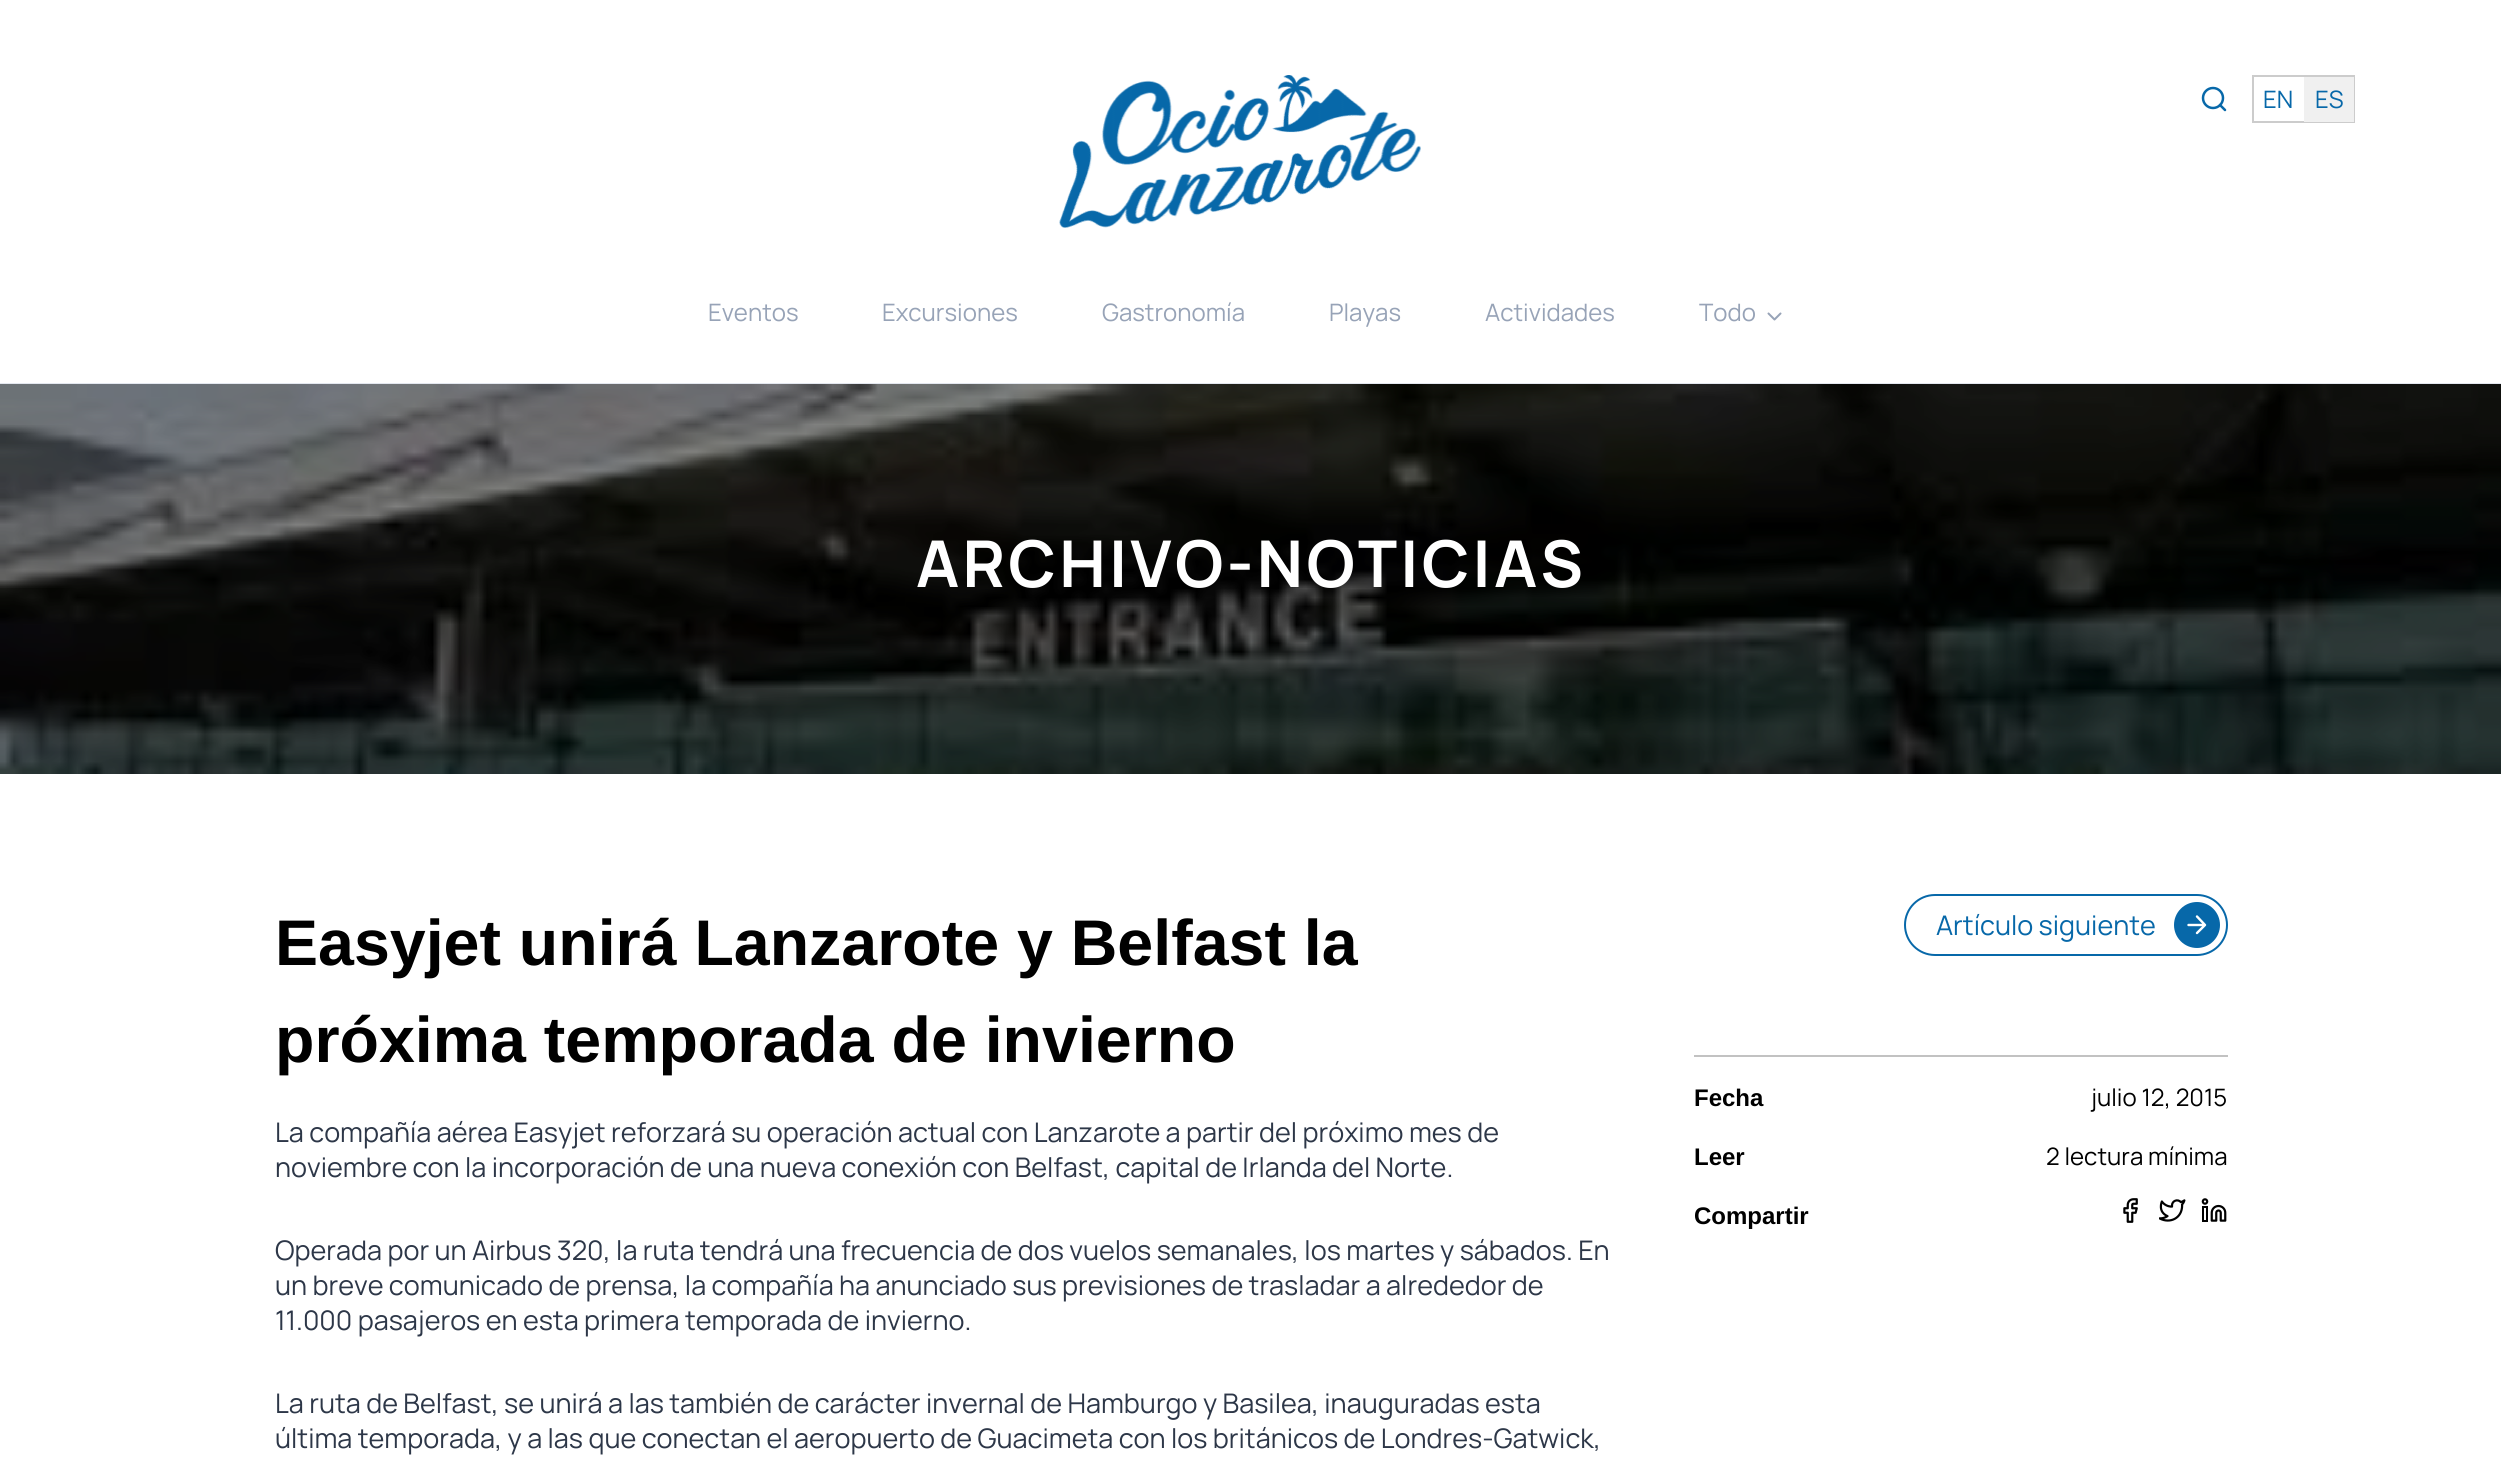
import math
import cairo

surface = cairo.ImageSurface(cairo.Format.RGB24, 2501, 1460)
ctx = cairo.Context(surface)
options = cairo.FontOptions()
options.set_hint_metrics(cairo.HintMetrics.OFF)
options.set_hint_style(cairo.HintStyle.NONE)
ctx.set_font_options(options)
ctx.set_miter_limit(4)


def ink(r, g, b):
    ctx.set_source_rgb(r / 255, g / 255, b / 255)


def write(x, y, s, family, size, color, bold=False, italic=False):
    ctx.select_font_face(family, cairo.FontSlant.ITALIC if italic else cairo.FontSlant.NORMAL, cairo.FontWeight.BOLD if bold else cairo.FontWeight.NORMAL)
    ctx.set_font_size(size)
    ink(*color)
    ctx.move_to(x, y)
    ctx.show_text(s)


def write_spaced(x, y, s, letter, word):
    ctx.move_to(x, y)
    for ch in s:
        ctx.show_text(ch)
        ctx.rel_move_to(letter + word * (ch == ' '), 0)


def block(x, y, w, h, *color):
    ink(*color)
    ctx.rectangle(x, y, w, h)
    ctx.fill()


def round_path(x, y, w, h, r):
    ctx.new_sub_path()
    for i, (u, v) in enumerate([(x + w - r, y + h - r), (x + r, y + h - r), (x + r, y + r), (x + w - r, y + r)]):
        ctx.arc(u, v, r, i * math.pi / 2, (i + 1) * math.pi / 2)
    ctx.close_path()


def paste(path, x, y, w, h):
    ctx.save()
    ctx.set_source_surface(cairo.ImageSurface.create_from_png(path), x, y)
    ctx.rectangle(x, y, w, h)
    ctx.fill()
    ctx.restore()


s1 = dict(family="Manrope", size=24, color=(7, 104, 169))
s2 = dict(family="Manrope", size=24, color=(151, 163, 183))
s3 = dict(family="Liberation Sans", size=64.5, color=(0, 0, 0), bold=True)
s4 = dict(family="Manrope", size=27, color=(45, 55, 72))
s5 = dict(family="Manrope", size=27, color=(7, 104, 169))
s6 = dict(family="Liberation Sans", size=24, color=(0, 0, 0), bold=True)
s7 = dict(family="Manrope", size=24, color=(0, 0, 0))

ink(255, 255, 255)
ctx.paint()
paste("pic1.png", 1059, 75, 362, 153)
ctx.arc(2213, 98, 10, 0, 2 * math.pi)
ink(7, 104, 169)
ctx.set_line_width(2.5)
ctx.stroke()
ctx.new_path()
ctx.move_to(2225, 110)
ctx.line_to(2220, 105)
ctx.set_line_cap(cairo.LineCap.ROUND)
ctx.set_line_join(cairo.LineJoin.ROUND)
ctx.stroke()
ctx.rectangle(2253, 76, 101, 46)
ink(204, 204, 204)
ctx.set_line_width(2)
ctx.set_line_cap(cairo.LineCap.BUTT)
ctx.set_line_join(cairo.LineJoin.MITER)
ctx.stroke()
write(2263, 108, "EN", **s1)
block(2304, 77, 50, 45, 240, 240, 240)
write(2315, 108, "ES", **s1)
block(0, 383, 2501, 1, 227, 231, 239)
write(708, 321, "Eventos", **s2)
write(882, 321, "Excursiones", **s2)
write(1102, 321, "Gastronomía", **s2)
write(1329, 321, "Playas", **s2)
write(1485, 321, "Actividades", **s2)
write(1699, 321, "Todo", **s2)
paste("pic2.png", 1767, 312, 15, 9)
paste("pic3.png", 0, 384, 2501, 390)
ctx.select_font_face("Manrope", cairo.FontSlant.NORMAL, cairo.FontWeight.BOLD)
ctx.set_font_size(64.5)
ink(255, 255, 255)
write_spaced(916, 587, "ARCHIVO-NOTICIAS", 3.25, 0)
write(275, 965, "Easyjet unirá Lanzarote y Belfast la", **s3)
write(275, 1062, "próxima temporada de invierno", **s3)
write(275, 1142, "La compañía aérea Easyjet reforzará su operación actual con Lanzarote a partir del próximo mes de", **s4)
write(275, 1177, "noviembre con la incorporación de una nueva conexión con Belfast, capital de Irlanda del Norte.", **s4)
write(275, 1260, "Operada por un Airbus 320, la ruta tendrá una frecuencia de dos vuelos semanales, los martes y sábados. En", **s4)
write(275, 1295, "un breve comunicado de prensa, la compañía ha anunciado sus previsiones de trasladar a alrededor de", **s4)
write(275, 1330, "11.000 pasajeros en esta primera temporada de invierno.", **s4)
write(275, 1413, "La ruta de Belfast, se unirá a las también de carácter invernal de Hamburgo y Basilea, inauguradas esta", **s4)
write(275, 1448, "última temporada, y a las que conectan el aeropuerto de Guacimeta con los británicos de Londres-Gatwick,", **s4)
round_path(1905, 895, 322, 60, 30)
ink(7, 104, 169)
ctx.stroke()
write(1936, 935, "Artículo siguiente", **s5)
ctx.new_path()
ctx.arc(2197, 925, 23, 0, 2 * math.pi)
ctx.fill()
ctx.new_path()
ctx.move_to(2188.5, 925)
ctx.line_to(2205, 925)
ctx.move_to(2197, 916.5)
ctx.line_to(2205, 925)
ctx.line_to(2197, 933)
ink(255, 255, 255)
ctx.set_line_width(2.4)
ctx.set_line_cap(cairo.LineCap.ROUND)
ctx.set_line_join(cairo.LineJoin.ROUND)
ctx.stroke()
block(1694, 1055, 534, 2, 194, 194, 194)
write(1694, 1106, "Fecha", **s6)
write(2091, 1106, "julio 12, 2015", **s7)
write(1694, 1165, "Leer", **s6)
write(2046, 1165, "2 lectura mínima", **s7)
write(1694, 1224, "Compartir", **s6)
paste("pic4.png", 2123, 1198, 15, 25)
paste("pic5.png", 2159, 1199, 27, 23)
paste("pic6.png", 2201, 1198, 26, 24)
surface.write_to_png("screenshot.png")
